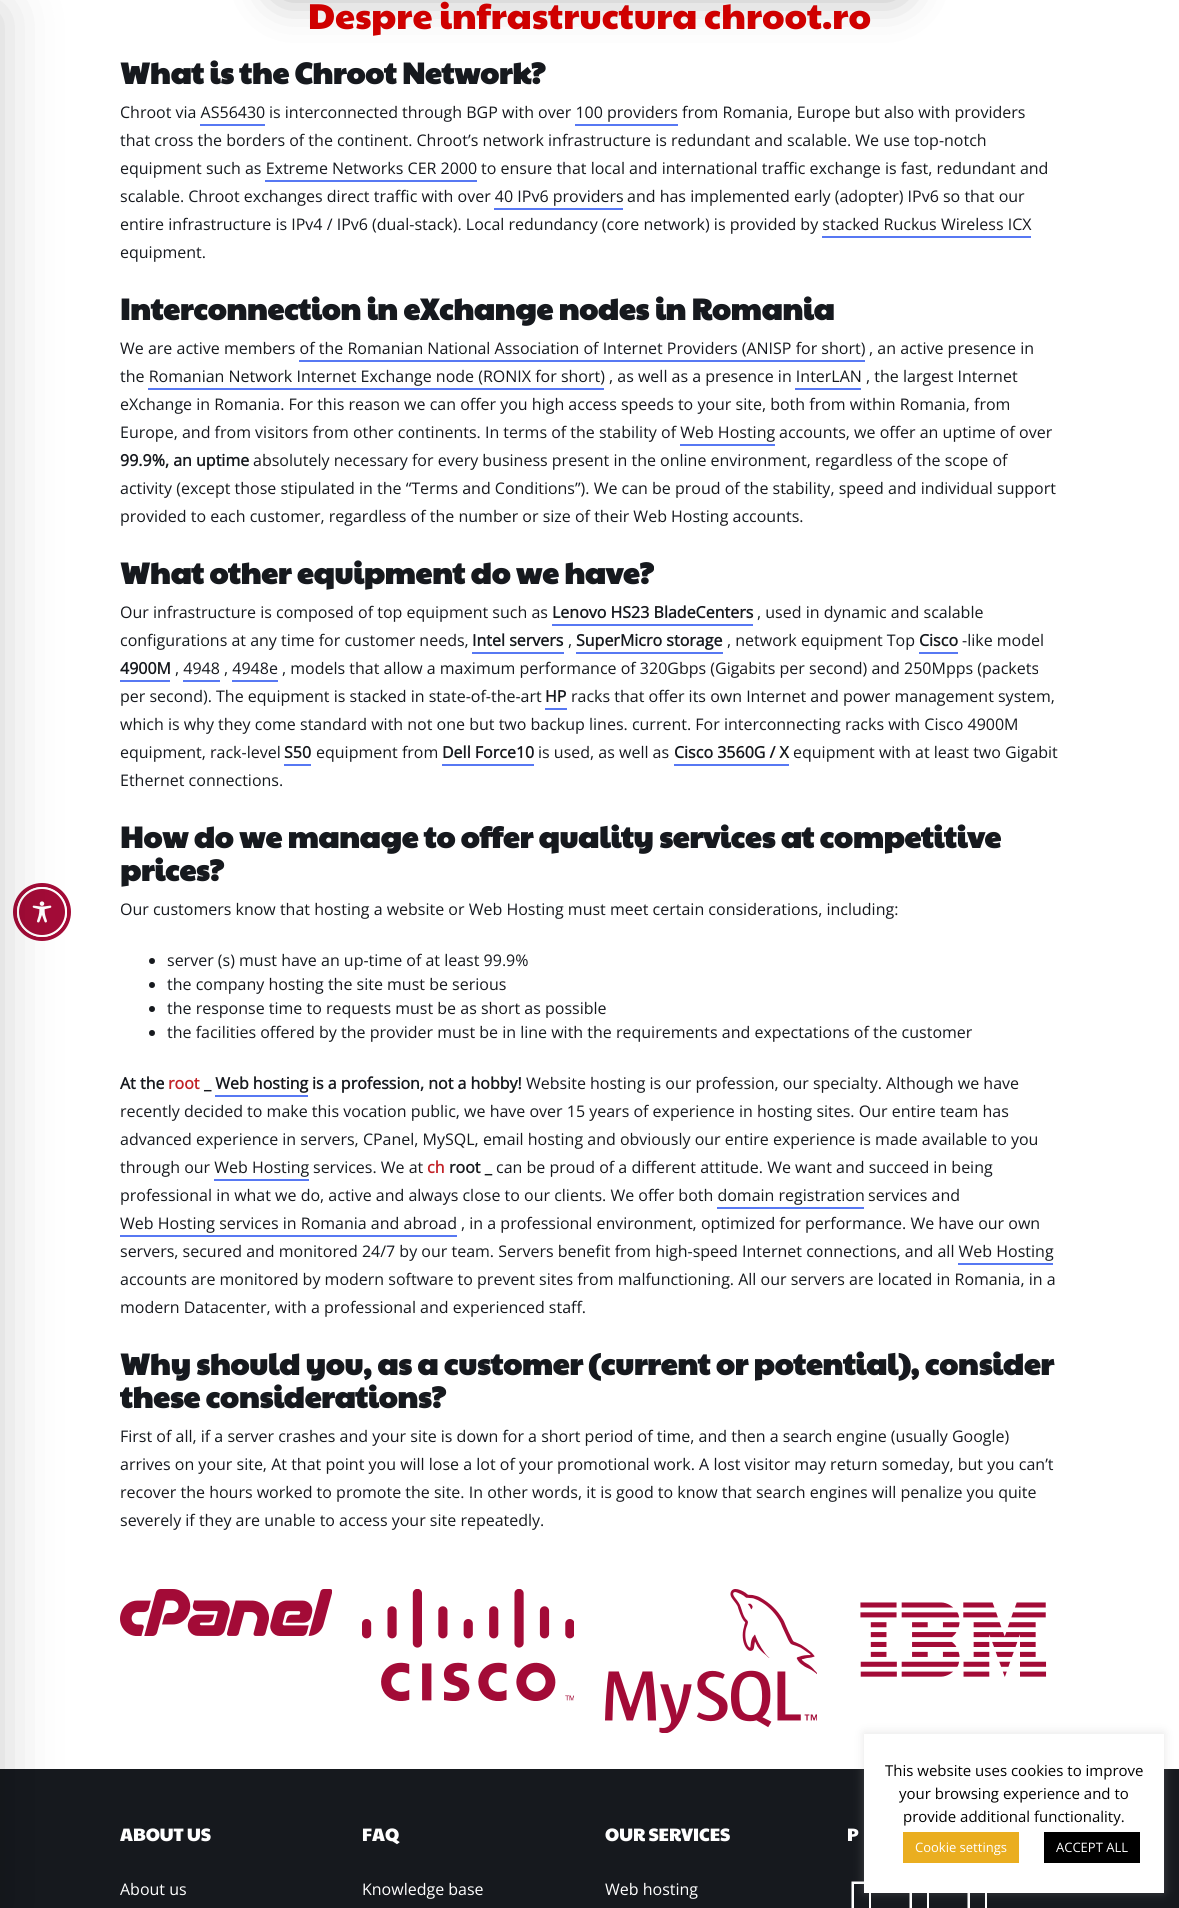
import math
import cairo

surface = cairo.ImageSurface(cairo.Format.RGB24, 1179, 1908)
ctx = cairo.Context(surface)
options = cairo.FontOptions()
options.set_hint_metrics(cairo.HintMetrics.OFF)
options.set_hint_style(cairo.HintStyle.NONE)
ctx.set_font_options(options)
ctx.set_miter_limit(4)


def ink(r, g, b):
    ctx.set_source_rgb(r / 255, g / 255, b / 255)


def write(x, y, s, family, size, color, bold=False, italic=False):
    ctx.select_font_face(family, cairo.FontSlant.ITALIC if italic else cairo.FontSlant.NORMAL, cairo.FontWeight.BOLD if bold else cairo.FontWeight.NORMAL)
    ctx.set_font_size(size)
    ink(*color)
    ctx.move_to(x, y)
    ctx.show_text(s)


def block(x, y, w, h, *color):
    ink(*color)
    ctx.rectangle(x, y, w, h)
    ctx.fill()


def round_path(x, y, w, h, r):
    ctx.new_sub_path()
    for i, (u, v) in enumerate([(x + w - r, y + h - r), (x + r, y + h - r), (x + r, y + r), (x + w - r, y + r)]):
        ctx.arc(u, v, r, i * math.pi / 2, (i + 1) * math.pi / 2)
    ctx.close_path()


def blur_box(x, y, w, h, r, blur, alpha):
    ctx.push_group_with_content(cairo.Content.ALPHA)
    ctx.set_operator(cairo.Operator.SOURCE)
    for i in range(15, -16, -2):
        e = blur * i / 6
        if min(w, h) + 2 * e > 0:
            ctx.set_source_rgba(0, 0, 0, alpha * math.erfc((i - 1) / 8.5) / 2)
            round_path(x - e, y - e, w + 2 * e, h + 2 * e, max(0, min(r + e + blur * .6, min(w, h) / 2 + e)))
            ctx.fill()
    ctx.mask(ctx.pop_group())


def paste(path, x, y, w, h):
    ctx.save()
    ctx.set_source_surface(cairo.ImageSurface.create_from_png(path), x, y)
    ctx.rectangle(x, y, w, h)
    ctx.fill()
    ctx.restore()


s1 = dict(family="Paytone One", size=36, color=(207, 0, 0))
s2 = dict(family="Paytone One", size=30, color=(22, 25, 30), bold=True)
s3 = dict(family="Open Sans", size=16, color=(22, 25, 30))
s4 = dict(family="Open Sans", size=16, color=(22, 25, 30), bold=True)
s5 = dict(family="Open Sans", size=16, color=(194, 33, 39), bold=True)
s6 = dict(family="Open Sans", size=15, color=(0, 0, 0))
s7 = dict(family="Open Sans", size=13, color=(255, 255, 255))
s8 = dict(family="Paytone One", size=18, color=(255, 255, 255))
s9 = dict(family="Open Sans", size=16, color=(255, 255, 255))

ink(255, 255, 255)
ctx.paint()
ctx.arc(42, 912, 27, 0, 2 * math.pi)
ink(163, 11, 55)
ctx.set_line_width(4)
ctx.stroke()
ctx.arc(42, 912, 24, 0, 2 * math.pi)
ctx.fill_preserve()
ink(255, 255, 255)
ctx.set_line_width(2)
ctx.stroke()
paste("pic5.png", 32, 901, 20, 22)
block(0, 1769, 1179, 139, 22, 25, 30)
ink(0, 0, 0)
blur_box(-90, 10, 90, 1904, 0, 30, 0.2)
blur_box(281, -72, 617, 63, 0, 24, 0.38)
write(308, 29, "Despre infrastructura chroot.ro", **s1)
write(120, 84, "What is the Chroot Network?", **s2)
write(120, 118, "Chroot via AS56430", **s3)
write(269, 118, "is interconnected through BGP with over 100 providers", **s3)
write(682, 118, "from Romania, Europe but also with providers", **s3)
block(200, 124, 65, 2, 87, 120, 243)
block(575, 124, 103, 2, 87, 120, 243)
write(120, 146, "that cross the borders of the continent. Chroot’s network infrastructure is redundant and scalable. We use top-notch", **s3)
write(120, 174, "equipment such as Extreme Networks CER 2000", **s3)
write(481, 174, "to ensure that local and international traffic exchange is fast, redundant and", **s3)
block(265, 180, 212, 2, 87, 120, 243)
write(120, 202, "scalable. Chroot exchanges direct traffic with over 40 IPv6 providers", **s3)
write(627, 202, "and has implemented early (adopter) IPv6 so that our", **s3)
block(494, 208, 129, 2, 87, 120, 243)
write(120, 230, "entire infrastructure is IPv4 / IPv6 (dual-stack). Local redundancy (core network) is provided by stacked Ruckus Wireless ICX", **s3)
block(822, 236, 209, 2, 87, 120, 243)
write(120, 258, "equipment.", **s3)
write(120, 320, "Interconnection in eXchange nodes in Romania", **s2)
write(120, 354, "We are active members of the Romanian National Association of Internet Providers (ANISP for short)", **s3)
write(869, 354, ", an active presence in", **s3)
block(299, 360, 566, 2, 87, 120, 243)
write(120, 382, "the Romanian Network Internet Exchange node (RONIX for short)", **s3)
write(609, 382, ", as well as a presence in InterLAN", **s3)
write(866, 382, ", the largest Internet", **s3)
block(148, 388, 456, 2, 87, 120, 243)
block(795, 388, 66, 2, 87, 120, 243)
write(120, 410, "eXchange in Romania. For this reason we can offer you high access speeds to your site, both from within Romania, from", **s3)
write(120, 438, "Europe, and from visitors from other continents. In terms of the stability of Web Hosting", **s3)
write(779, 438, "accounts, we offer an uptime of over", **s3)
block(680, 444, 95, 2, 87, 120, 243)
write(120, 466, "99.9%, an uptime", **s4)
write(253, 466, "absolutely necessary for every business present in the online environment, regardless of the scope of", **s3)
write(120, 494, "activity (except those stipulated in the “Terms and Conditions”). We can be proud of the stability, speed and individual support", **s3)
write(120, 522, "provided to each customer, regardless of the number or size of their Web Hosting accounts.", **s3)
write(120, 584, "What other equipment do we have?", **s2)
write(120, 618, "Our infrastructure is composed of top equipment such as", **s3)
write(552, 618, "Lenovo HS23 BladeCenters", **s4)
block(552, 624, 201, 2, 87, 120, 243)
write(757, 618, ", used in dynamic and scalable", **s3)
write(120, 646, "configurations at any time for customer needs,", **s3)
write(472, 646, "Intel servers", **s4)
block(472, 652, 92, 2, 87, 120, 243)
write(568, 646, ",", **s3)
write(576, 646, "SuperMicro storage", **s4)
block(576, 652, 147, 2, 87, 120, 243)
write(727, 646, ", network equipment Top", **s3)
write(919, 646, "Cisco", **s4)
block(919, 652, 39, 2, 87, 120, 243)
write(962, 646, "-like model", **s3)
write(120, 674, "4900M", **s4)
block(120, 680, 50, 2, 87, 120, 243)
write(175, 674, ", 4948", **s3)
write(224, 674, ", 4948e", **s3)
write(282, 674, ", models that allow a maximum performance of 320Gbps (Gigabits per second) and 250Mpps (packets", **s3)
block(183, 680, 37, 2, 87, 120, 243)
block(232, 680, 46, 2, 87, 120, 243)
write(120, 702, "per second). The equipment is stacked in state-of-the-art", **s3)
write(545, 702, "HP", **s4)
block(545, 708, 22, 2, 87, 120, 243)
write(571, 702, "racks that offer its own Internet and power management system,", **s3)
write(120, 730, "which is why they come standard with not one but two backup lines. current. For interconnecting racks with Cisco 4900M", **s3)
write(120, 758, "equipment, rack-level", **s3)
write(284, 758, "S50", **s4)
block(284, 764, 27, 2, 87, 120, 243)
write(316, 758, "equipment from", **s3)
write(442, 758, "Dell Force10", **s4)
block(442, 764, 92, 2, 87, 120, 243)
write(538, 758, "is used, as well as", **s3)
write(674, 758, "Cisco 3560G / X", **s4)
block(674, 764, 115, 2, 87, 120, 243)
write(793, 758, "equipment with at least two Gigabit", **s3)
write(120, 786, "Ethernet connections.", **s3)
write(120, 848, "How do we manage to offer quality services at competitive", **s2)
write(120, 881, "prices?", **s2)
write(120, 915, "Our customers know that hosting a website or Web Hosting must meet certain considerations, including:", **s3)
ctx.new_path()
ctx.arc(152, 961, 3, 0, 2 * math.pi)
ctx.fill()
write(167, 966, "server (s) must have an up-time of at least 99.9%", **s3)
ctx.new_path()
ctx.arc(152, 985, 3, 0, 2 * math.pi)
ctx.fill()
write(167, 990, "the company hosting the site must be serious", **s3)
ctx.new_path()
ctx.arc(152, 1009, 3, 0, 2 * math.pi)
ctx.fill()
write(167, 1014, "the response time to requests must be as short as possible", **s3)
ctx.new_path()
ctx.arc(152, 1033, 3, 0, 2 * math.pi)
ctx.fill()
write(167, 1038, "the facilities offered by the provider must be in line with the requirements and expectations of the customer", **s3)
write(120, 1089, "At the", **s4)
write(168, 1089, "root", **s5)
write(204, 1089, "_ Web hosting", **s4)
write(312, 1089, "is a profession, not a hobby!", **s4)
block(215, 1095, 93, 2, 87, 120, 243)
write(526, 1089, "Website hosting is our profession, our specialty. Although we have", **s3)
write(120, 1117, "recently decided to make this vocation public, we have over 15 years of experience in hosting sites. Our entire team has", **s3)
write(120, 1145, "advanced experience in servers, CPanel, MySQL, email hosting and obviously our entire experience is made available to you", **s3)
write(120, 1173, "through our Web Hosting", **s3)
write(313, 1173, "services. We at", **s3)
write(427, 1173, "ch", **s5)
write(449, 1173, "root _", **s4)
write(496, 1173, "can be proud of a different attitude. We want and succeed in being", **s3)
block(214, 1179, 95, 2, 87, 120, 243)
write(120, 1201, "professional in what we do, active and always close to our clients. We offer both domain registration", **s3)
write(868, 1201, "services and", **s3)
block(717, 1207, 147, 2, 87, 120, 243)
write(120, 1229, "Web Hosting services in Romania and abroad", **s3)
block(120, 1235, 337, 2, 87, 120, 243)
write(461, 1229, ", in a professional environment, optimized for performance. We have our own", **s3)
write(120, 1257, "servers, secured and monitored 24/7 by our team. Servers benefit from high-speed Internet connections, and all Web Hosting", **s3)
block(958, 1263, 95, 2, 87, 120, 243)
write(120, 1285, "accounts are monitored by modern software to prevent sites from malfunctioning. All our servers are located in Romania, in a", **s3)
write(120, 1313, "modern Datacenter, with a professional and experienced staff.", **s3)
write(120, 1375, "Why should you, as a customer (current or potential), consider", **s2)
write(120, 1408, "these considerations?", **s2)
write(120, 1442, "First of all, if a server crashes and your site is down for a short period of time, and then a search engine (usually Google)", **s3)
write(120, 1470, "arrives on your site, At that point you will lose a lot of your promotional work. A lost visitor may return someday, but you can’t", **s3)
write(120, 1498, "recover the hours worked to promote the site. In other words, it is good to know that search engines will penalize you quite", **s3)
write(120, 1526, "severely if they are unable to access your site repeatedly.", **s3)
paste("pic1.png", 120, 1589, 212, 47)
paste("pic2.png", 362, 1589, 212, 112)
paste("pic3.png", 605, 1589, 212, 144)
paste("pic4.png", 860, 1602, 187, 75)
ink(255, 255, 255)
ctx.new_path()
ctx.move_to(851.5, 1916)
ctx.line_to(851.5, 1881.5)
ctx.line_to(871, 1881.5)
ctx.line_to(871, 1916)
ctx.close_path()
ctx.move_to(854, 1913.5)
ctx.line_to(869, 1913.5)
ctx.line_to(869, 1884)
ctx.line_to(854, 1884)
ctx.close_path()
ctx.fill()
ctx.new_path()
ctx.move_to(909.5, 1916)
ctx.line_to(909.5, 1881.5)
ctx.line_to(929, 1881.5)
ctx.line_to(929, 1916)
ctx.close_path()
ctx.move_to(912, 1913.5)
ctx.line_to(927, 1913.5)
ctx.line_to(927, 1884)
ctx.line_to(912, 1884)
ctx.close_path()
ctx.fill()
ctx.new_path()
ctx.move_to(967.5, 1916)
ctx.line_to(967.5, 1881.5)
ctx.line_to(987, 1881.5)
ctx.line_to(987, 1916)
ctx.close_path()
ctx.move_to(970, 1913.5)
ctx.line_to(985, 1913.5)
ctx.line_to(985, 1884)
ctx.line_to(970, 1884)
ctx.close_path()
ctx.fill()
ink(172, 171, 171)
blur_box(864, 1733, 300, 159, 0, 5, 0.3)
block(864, 1734, 300, 159, 255, 255, 255)
write(885, 1776, "This website uses cookies to improve", **s6)
write(899, 1799, "your browsing experience and to", **s6)
write(903, 1822, "provide additional functionality.", **s6)
block(903, 1832, 116, 31, 234, 174, 32)
write(915, 1852, "Cookie settings", **s7)
block(1044, 1832, 96, 31, 0, 0, 0)
write(1056, 1852, "ACCEPT ALL", **s7)
write(120, 1841, "ABOUT US", **s8)
write(120, 1895, "About us", **s9)
write(362, 1841, "FAQ", **s8)
write(362, 1895, "Knowledge base", **s9)
write(605, 1841, "OUR SERVICES", **s8)
write(605, 1895, "Web hosting", **s9)
write(847, 1841, "P", **s8)
surface.write_to_png("screenshot.png")
